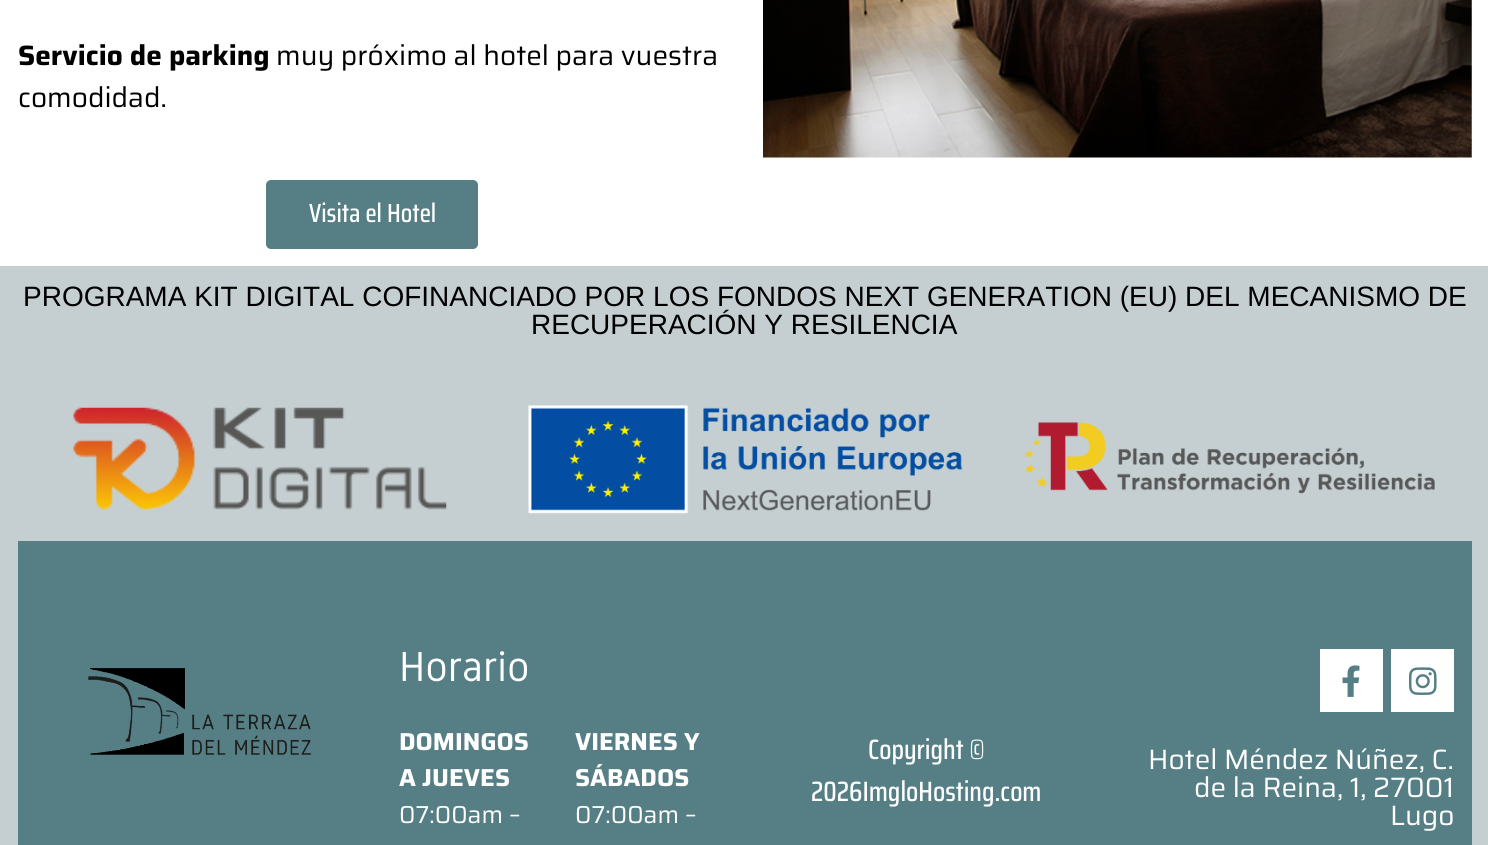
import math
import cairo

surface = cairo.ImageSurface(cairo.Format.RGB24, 1488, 845)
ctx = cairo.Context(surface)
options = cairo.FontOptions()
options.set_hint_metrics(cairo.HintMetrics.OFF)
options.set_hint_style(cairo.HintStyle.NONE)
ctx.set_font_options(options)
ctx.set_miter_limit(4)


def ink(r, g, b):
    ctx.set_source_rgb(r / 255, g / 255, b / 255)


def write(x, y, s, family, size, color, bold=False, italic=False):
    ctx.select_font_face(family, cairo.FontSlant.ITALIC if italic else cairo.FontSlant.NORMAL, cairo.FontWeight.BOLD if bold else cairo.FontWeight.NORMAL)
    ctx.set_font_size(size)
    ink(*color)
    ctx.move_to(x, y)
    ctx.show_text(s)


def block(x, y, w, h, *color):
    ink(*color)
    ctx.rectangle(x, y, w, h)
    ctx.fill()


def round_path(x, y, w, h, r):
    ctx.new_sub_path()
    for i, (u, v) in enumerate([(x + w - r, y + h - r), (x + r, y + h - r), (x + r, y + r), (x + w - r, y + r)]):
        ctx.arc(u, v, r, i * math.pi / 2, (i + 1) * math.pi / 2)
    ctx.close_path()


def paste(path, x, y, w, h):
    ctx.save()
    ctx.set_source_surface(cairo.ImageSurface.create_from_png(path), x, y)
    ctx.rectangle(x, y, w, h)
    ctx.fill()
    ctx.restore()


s1 = dict(family="Saira", size=28, color=(0, 0, 0), bold=True)
s2 = dict(family="Saira", size=28, color=(0, 0, 0))
s3 = dict(family="Saira Condensed Medium", size=26.25, color=(255, 255, 255))
s4 = dict(family="Liberation Sans", size=28, color=(0, 0, 0))
s5 = dict(family="Gidole", size=42, color=(255, 255, 255))
s6 = dict(family="Saira", size=24.5, color=(255, 255, 255), bold=True)
s7 = dict(family="Saira", size=24.5, color=(255, 255, 255))
s8 = dict(family="Saira Condensed Medium", size=28, color=(255, 255, 255))
s9 = dict(family="Saira", size=28, color=(255, 255, 255))

ink(255, 255, 255)
ctx.paint()
write(18, 65, "Servicio de parking", **s1)
write(276, 65, "muy próximo al hotel para vuestra", **s2)
write(18, 107, "comodidad.", **s2)
ink(85, 126, 133)
round_path(266, 180, 212, 69, 5)
ctx.fill()
write(309, 222, "Visita el Hotel", **s3)
paste("pic1.png", 763, 0, 709, 158)
block(0, 266, 1488, 579, 197, 207, 209)
write(23, 306, "PROGRAMA KIT DIGITAL COFINANCIADO POR LOS FONDOS NEXT GENERATION (EU) DEL MECANISMO DE", **s4)
write(531, 334, "RECUPERACIÓN Y RESILENCIA", **s4)
paste("pic2.png", 73, 407, 374, 103)
paste("pic3.png", 528, 405, 435, 109)
paste("pic4.png", 1024, 422, 411, 72)
block(18, 541, 1454, 304, 85, 126, 133)
paste("pic5.png", 88, 668, 223, 87)
write(399, 681, "Horario", **s5)
write(399, 750, "DOMINGOS", **s6)
write(399, 786, "A JUEVES", **s6)
write(399, 823, "07:00am –", **s7)
write(575, 750, "VIERNES Y", **s6)
write(575, 786, "SÁBADOS", **s6)
write(575, 823, "07:00am –", **s7)
write(868, 759, "Copyright ©", **s8)
write(811, 801, "2026ImgloHosting.com", **s8)
block(1320, 649, 63, 63, 255, 255, 255)
paste("pic6.png", 1342, 665, 18, 32)
block(1391, 649, 63, 63, 255, 255, 255)
paste("pic7.png", 1409, 667, 28, 28)
write(1148, 769, "Hotel Méndez Núñez, C.", **s9)
write(1194, 797, "de la Reina, 1, 27001", **s9)
write(1390, 825, "Lugo", **s9)
surface.write_to_png("screenshot.png")
